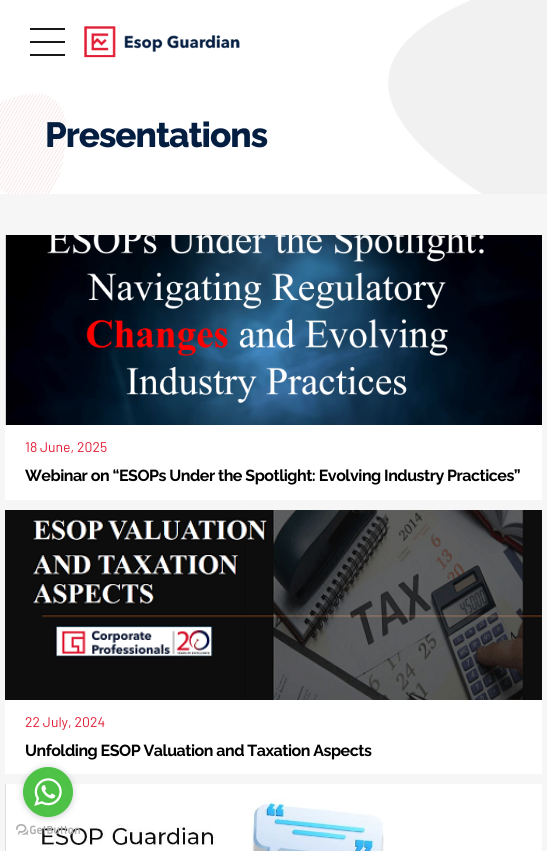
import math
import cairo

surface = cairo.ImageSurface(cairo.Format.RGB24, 547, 851)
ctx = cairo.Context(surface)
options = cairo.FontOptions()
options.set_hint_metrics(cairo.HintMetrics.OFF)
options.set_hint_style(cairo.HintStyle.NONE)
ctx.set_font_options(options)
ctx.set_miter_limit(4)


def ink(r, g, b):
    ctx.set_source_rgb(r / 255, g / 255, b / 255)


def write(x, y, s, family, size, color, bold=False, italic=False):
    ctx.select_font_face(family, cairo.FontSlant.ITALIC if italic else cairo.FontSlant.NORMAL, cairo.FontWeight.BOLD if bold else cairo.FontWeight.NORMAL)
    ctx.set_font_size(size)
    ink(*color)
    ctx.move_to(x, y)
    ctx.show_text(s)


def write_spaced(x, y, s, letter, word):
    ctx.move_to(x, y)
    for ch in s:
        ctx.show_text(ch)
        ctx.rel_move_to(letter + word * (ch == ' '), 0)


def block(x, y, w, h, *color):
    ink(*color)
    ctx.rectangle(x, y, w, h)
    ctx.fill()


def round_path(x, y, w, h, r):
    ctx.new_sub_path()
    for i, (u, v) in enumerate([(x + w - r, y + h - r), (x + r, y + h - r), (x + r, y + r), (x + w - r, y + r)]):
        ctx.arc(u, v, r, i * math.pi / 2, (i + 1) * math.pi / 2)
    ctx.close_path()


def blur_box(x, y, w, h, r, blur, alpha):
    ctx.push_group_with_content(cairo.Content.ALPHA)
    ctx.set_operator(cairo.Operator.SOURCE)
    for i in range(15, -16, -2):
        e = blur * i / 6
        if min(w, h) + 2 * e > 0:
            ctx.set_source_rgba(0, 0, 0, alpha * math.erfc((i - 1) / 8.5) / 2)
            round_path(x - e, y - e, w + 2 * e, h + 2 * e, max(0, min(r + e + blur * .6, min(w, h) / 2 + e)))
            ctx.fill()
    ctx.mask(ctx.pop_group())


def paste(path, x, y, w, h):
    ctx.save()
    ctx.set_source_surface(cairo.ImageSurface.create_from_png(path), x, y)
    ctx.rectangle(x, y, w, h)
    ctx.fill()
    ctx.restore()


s1 = dict(family="Barlow", size=14, color=(225, 30, 53))

ink(255, 255, 255)
ctx.paint()
paste("pic2.png", 0, 0, 547, 194)
block(30, 28, 35, 2, 24, 24, 24)
block(30, 41, 35, 2, 24, 24, 24)
block(30, 54, 35, 2, 24, 24, 24)
paste("pic1.png", 84, 26, 156, 32)
ctx.select_font_face("Raleway ExtraBold")
ctx.set_font_size(35)
ink(4, 30, 66)
write_spaced(45, 147, "Presentations", -1, 0)
block(0, 194, 547, 657, 246, 246, 246)
block(5, 425, 537, 75, 255, 255, 255)
paste("pic3.png", 5, 235, 537, 190)
write(25, 452, "18 June, 2025", **s1)
ctx.select_font_face("Raleway", cairo.FontSlant.NORMAL, cairo.FontWeight.BOLD)
ctx.set_font_size(16)
ink(0, 0, 0)
write_spaced(25, 481, "Webinar on “ESOPs Under the Spotlight: Evolving Industry Practices”", -0.48, 0)
block(5, 700, 537, 74, 255, 255, 255)
paste("pic4.png", 5, 510, 537, 190)
write(25, 727, "22 July, 2024", **s1)
ctx.select_font_face("Raleway", cairo.FontSlant.NORMAL, cairo.FontWeight.BOLD)
ctx.set_font_size(16)
ink(0, 0, 0)
write_spaced(25, 756, "Unfolding ESOP Valuation and Taxation Aspects", -0.48, 0)
block(384, 784, 158, 67, 255, 255, 255)
paste("pic5.png", 5, 784, 379, 67)
paste("pic7.png", 16, 824, 64, 11)
ink(136, 136, 136)
blur_box(23, 768, 50, 50, 25, 3.5, 0.4)
ink(77, 194, 71)
ctx.arc(48, 792, 25, 0, 2 * math.pi)
ctx.fill()
paste("pic6.png", 34, 778, 28, 28)
surface.write_to_png("screenshot.png")
